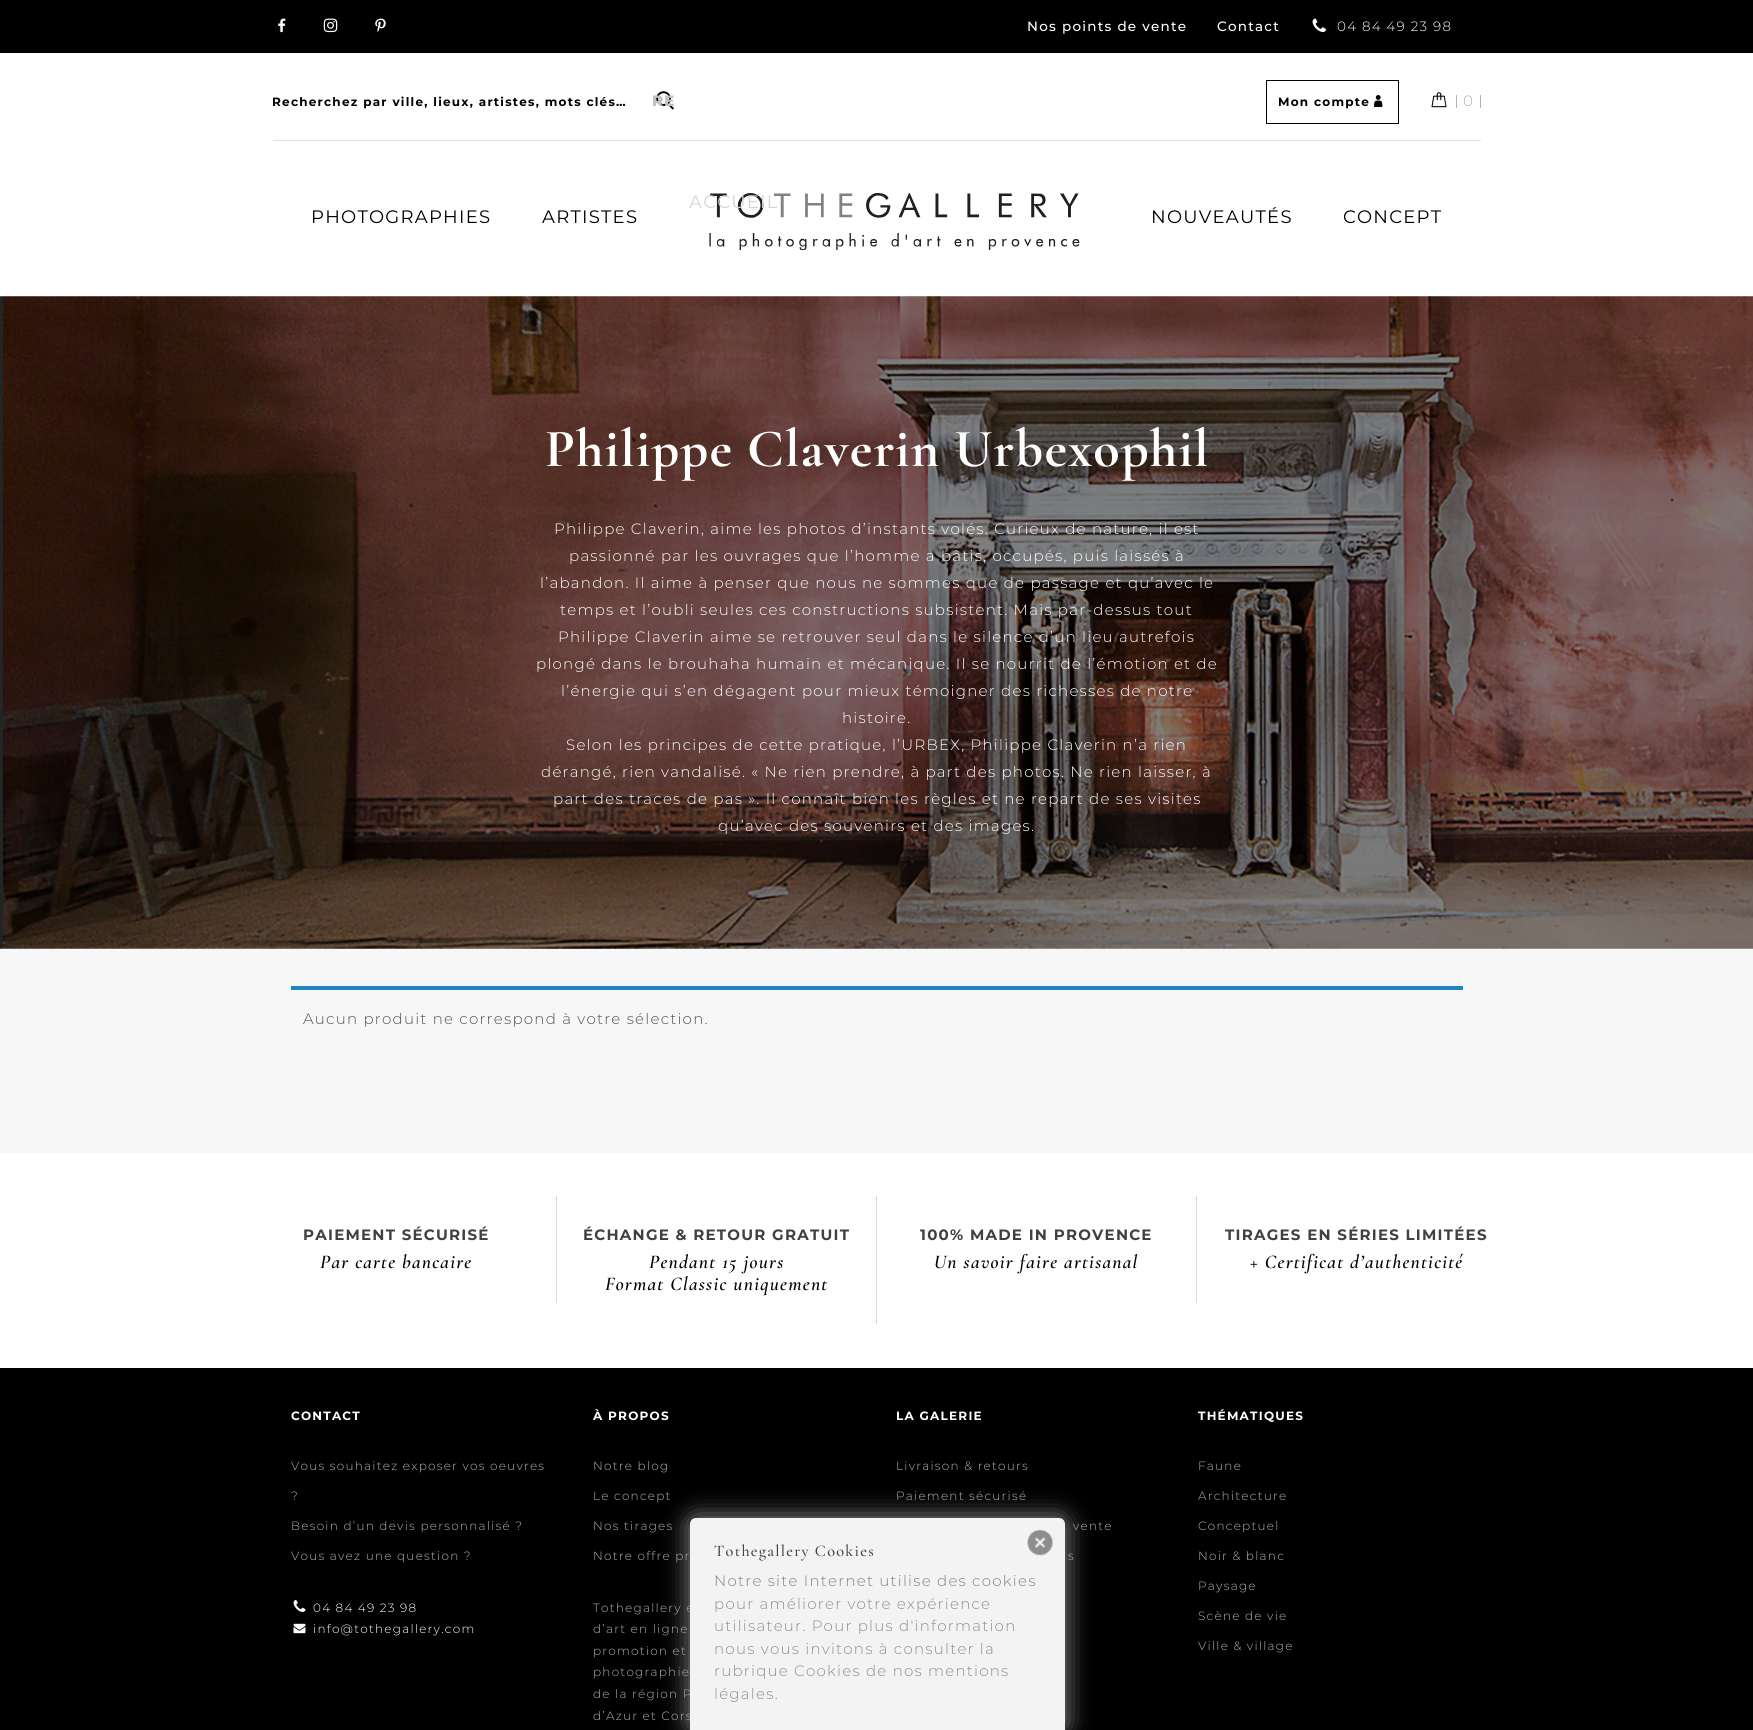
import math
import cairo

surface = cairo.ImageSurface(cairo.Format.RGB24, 1753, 1730)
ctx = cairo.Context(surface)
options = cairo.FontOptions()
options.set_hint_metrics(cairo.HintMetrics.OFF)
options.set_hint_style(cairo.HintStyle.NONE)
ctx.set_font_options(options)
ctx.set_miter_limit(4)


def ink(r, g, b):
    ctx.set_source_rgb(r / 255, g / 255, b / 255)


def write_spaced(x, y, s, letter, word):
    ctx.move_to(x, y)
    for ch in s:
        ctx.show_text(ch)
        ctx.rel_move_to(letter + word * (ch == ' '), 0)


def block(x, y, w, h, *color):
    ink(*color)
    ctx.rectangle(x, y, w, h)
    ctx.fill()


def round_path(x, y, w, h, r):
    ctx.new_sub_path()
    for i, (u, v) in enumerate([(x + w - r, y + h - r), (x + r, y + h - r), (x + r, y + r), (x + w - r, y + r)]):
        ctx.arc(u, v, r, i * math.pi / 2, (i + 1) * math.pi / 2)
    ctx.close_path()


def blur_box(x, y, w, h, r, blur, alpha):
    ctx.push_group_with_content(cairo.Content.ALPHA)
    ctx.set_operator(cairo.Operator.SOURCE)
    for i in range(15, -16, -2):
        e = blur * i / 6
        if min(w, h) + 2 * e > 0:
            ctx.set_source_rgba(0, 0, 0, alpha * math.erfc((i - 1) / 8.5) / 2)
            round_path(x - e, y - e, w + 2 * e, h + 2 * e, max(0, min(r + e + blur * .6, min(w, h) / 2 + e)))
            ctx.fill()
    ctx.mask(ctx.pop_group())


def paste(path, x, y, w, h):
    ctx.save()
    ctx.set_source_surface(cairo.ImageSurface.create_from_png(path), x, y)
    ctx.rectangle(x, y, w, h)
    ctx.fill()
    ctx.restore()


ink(255, 255, 255)
ctx.paint()
block(0, 0, 1753, 53, 0, 0, 0)
paste("pic1.png", 278, 18, 8, 15)
paste("pic2.png", 323, 18, 15, 15)
paste("pic3.png", 375, 18, 11, 14)
ctx.select_font_face("Montserrat Medium")
ctx.set_font_size(13.5)
ink(255, 255, 255)
write_spaced(1027, 31, "Nos points de vente", 1.25, 0)
write_spaced(1217, 31, "Contact", 1.25, 0)
paste("pic4.png", 1312, 18, 14, 15)
ctx.select_font_face("Montserrat Light")
write_spaced(1337, 31, "04 84 49 23 98", 1.25, 0)
block(273, 140, 1208, 1, 228, 228, 228)
ctx.save()
ctx.rectangle(273, 95, 357, 14)
ctx.clip()
ctx.select_font_face("Montserrat", cairo.FontSlant.NORMAL, cairo.FontWeight.BOLD)
ctx.set_font_size(12)
ink(0, 0, 0)
write_spaced(272, 106, "Recherchez par ville, lieux, artistes, mots clés…", 1.25, 0)
ctx.restore()
paste("pic5.png", 656, 91, 18, 19)
ctx.select_font_face("Montserrat ExtraBold")
ctx.set_font_size(15)
ink(193, 193, 193)
write_spaced(652, 106, "RE", 1.25, 0)
ctx.rectangle(1266.5, 80.5, 132, 43)
ink(0, 0, 0)
ctx.set_line_width(1)
ctx.stroke()
ctx.select_font_face("Montserrat", cairo.FontSlant.NORMAL, cairo.FontWeight.BOLD)
ctx.set_font_size(12)
write_spaced(1278, 106, "Mon compte", 1.25, 0)
paste("pic6.png", 1374, 95, 9, 12)
paste("pic7.png", 1431, 92, 16, 16)
ctx.select_font_face("Montserrat Light")
ctx.set_font_size(15)
ink(178, 178, 178)
write_spaced(1463, 106, "0", 1.25, 0)
block(1480, 95, 1, 13, 178, 178, 178)
block(1456, 95, 1, 13, 178, 178, 178)
paste("pic8.png", 709, 193, 371, 57)
ctx.select_font_face("Montserrat")
ctx.set_font_size(18)
ink(214, 213, 214)
write_spaced(689, 208, "ACCUEIL", 1.25, 0)
ink(0, 0, 0)
write_spaced(311, 223, "PHOTOGRAPHIES", 1.25, 0)
write_spaced(542, 223, "ARTISTES", 1.25, 0)
write_spaced(1151, 223, "NOUVEAUTÉS", 1.25, 0)
write_spaced(1343, 223, "CONCEPT", 1.25, 0)
block(0, 296, 1753, 857, 247, 247, 247)
paste("pic9.png", 0, 296, 1753, 653)
ctx.select_font_face("Cormorant Garamond", cairo.FontSlant.NORMAL, cairo.FontWeight.BOLD)
ctx.set_font_size(54)
ink(255, 255, 255)
write_spaced(545, 466, "Philippe Claverin Urbexophil", 1.25, 0)
ctx.select_font_face("Montserrat Light")
ctx.set_font_size(15)
write_spaced(554, 534, "Philippe Claverin, aime les photos d’instants volés. Curieux de nature, il est", 1.25, 0)
write_spaced(569, 561, "passionné par les ouvrages que l’homme a bâtis, occupés, puis laissés à", 1.25, 0)
write_spaced(540, 588, "l’abandon. Il aime à penser que nous ne sommes que de passage et qu’avec le", 1.25, 0)
write_spaced(560, 615, "temps et l’oubli seules ces constructions subsistent. Mais par-dessus tout", 1.25, 0)
write_spaced(558, 642, "Philippe Claverin aime se retrouver seul dans le silence d’un lieu autrefois", 1.25, 0)
write_spaced(536, 669, "plongé dans le brouhaha humain et mécanique. Il se nourrit de l’émotion et de", 1.25, 0)
write_spaced(561, 696, "l’énergie qui s’en dégagent pour mieux témoigner des richesses de notre", 1.25, 0)
write_spaced(842, 723, "histoire.", 1.25, 0)
write_spaced(566, 750, "Selon les principes de cette pratique, l’URBEX, Philippe Claverin n’a rien", 1.25, 0)
write_spaced(541, 777, "dérangé, rien vandalisé. « Ne rien prendre, à part des photos. Ne rien laisser, à", 1.25, 0)
write_spaced(553, 804, "part des traces de pas ». Il connaît bien les règles et ne repart de ses visites", 1.25, 0)
write_spaced(718, 831, "qu’avec des souvenirs et des images.", 1.25, 0)
block(291, 986, 1172, 4, 30, 133, 190)
ink(81, 81, 81)
write_spaced(303, 1024, "Aucun produit ne correspond à votre sélection.", 1.25, 0)
block(556, 1196, 1, 107, 217, 217, 217)
ctx.select_font_face("Montserrat", cairo.FontSlant.NORMAL, cairo.FontWeight.BOLD)
ink(64, 64, 64)
write_spaced(303, 1240, "PAIEMENT SÉCURISÉ", 1.25, 0)
ctx.select_font_face("Cormorant Garamond SemiBold", cairo.FontSlant.ITALIC)
ctx.set_font_size(19.5)
ink(0, 0, 0)
write_spaced(320, 1268, "Par carte bancaire", 1.25, 0)
block(876, 1196, 1, 128, 217, 217, 217)
ctx.select_font_face("Montserrat", cairo.FontSlant.NORMAL, cairo.FontWeight.BOLD)
ctx.set_font_size(15)
ink(64, 64, 64)
write_spaced(583, 1240, "ÉCHANGE & RETOUR GRATUIT", 1.25, 0)
ctx.select_font_face("Cormorant Garamond SemiBold", cairo.FontSlant.ITALIC)
ctx.set_font_size(19.5)
ink(0, 0, 0)
write_spaced(649, 1268, "Pendant 15 jours", 1.25, 0)
write_spaced(605, 1290, "Format Classic uniquement", 1.25, 0)
block(1196, 1196, 1, 107, 217, 217, 217)
ctx.select_font_face("Montserrat", cairo.FontSlant.NORMAL, cairo.FontWeight.BOLD)
ctx.set_font_size(15)
ink(64, 64, 64)
write_spaced(920, 1240, "100% MADE IN PROVENCE", 1.25, 0)
ctx.select_font_face("Cormorant Garamond SemiBold", cairo.FontSlant.ITALIC)
ctx.set_font_size(19.5)
ink(0, 0, 0)
write_spaced(934, 1268, "Un savoir faire artisanal", 1.25, 0)
ctx.select_font_face("Montserrat", cairo.FontSlant.NORMAL, cairo.FontWeight.BOLD)
ctx.set_font_size(15)
ink(64, 64, 64)
write_spaced(1225, 1240, "TIRAGES EN SÉRIES LIMITÉES", 1.25, 0)
ctx.select_font_face("Cormorant Garamond SemiBold", cairo.FontSlant.ITALIC)
ctx.set_font_size(19.5)
ink(0, 0, 0)
write_spaced(1250, 1268, "+ Certificat d’authenticité", 1.25, 0)
block(0, 1368, 1753, 362, 0, 0, 0)
ctx.select_font_face("Montserrat", cairo.FontSlant.NORMAL, cairo.FontWeight.BOLD)
ctx.set_font_size(12)
ink(255, 255, 255)
write_spaced(291, 1420, "CONTACT", 1.25, 0)
ctx.select_font_face("Montserrat Light")
ink(178, 178, 178)
write_spaced(291, 1470, "Vous souhaitez exposer vos oeuvres", 1.25, 0)
write_spaced(291, 1500, "?", 1.25, 0)
write_spaced(291, 1530, "Besoin d’un devis personnalisé ?", 1.25, 0)
write_spaced(291, 1560, "Vous avez une question ?", 1.25, 0)
paste("pic10.png", 293, 1600, 13, 12)
ink(255, 255, 255)
write_spaced(313, 1612, "04 84 49 23 98", 1.25, 0)
paste("pic11.png", 293, 1623, 13, 11)
write_spaced(313, 1633, "info@tothegallery.com", 1.25, 0)
ctx.select_font_face("Montserrat", cairo.FontSlant.NORMAL, cairo.FontWeight.BOLD)
write_spaced(593, 1420, "À PROPOS", 1.25, 0)
ctx.select_font_face("Montserrat Light")
ink(178, 178, 178)
write_spaced(593, 1470, "Notre blog", 1.25, 0)
write_spaced(593, 1500, "Le concept", 1.25, 0)
write_spaced(593, 1530, "Nos tirages", 1.25, 0)
write_spaced(593, 1560, "Notre offre pr", 1.25, 0)
write_spaced(593, 1612, "Tothegallery e", 1.25, 0)
write_spaced(593, 1633, "d’art en ligne", 1.25, 0)
write_spaced(593, 1655, "promotion et", 1.25, 0)
write_spaced(593, 1676, "photographie", 1.25, 0)
write_spaced(593, 1698, "de la région P", 1.25, 0)
write_spaced(593, 1720, "d’Azur et Cors", 1.25, 0)
ctx.select_font_face("Montserrat", cairo.FontSlant.NORMAL, cairo.FontWeight.BOLD)
ink(255, 255, 255)
write_spaced(896, 1420, "LA GALERIE", 1.25, 0)
ctx.select_font_face("Montserrat Light")
ink(178, 178, 178)
write_spaced(896, 1470, "Livraison & retours", 1.25, 0)
write_spaced(896, 1500, "Paiement sécurisé", 1.25, 0)
write_spaced(1073, 1530, "vente", 1.25, 0)
write_spaced(1068, 1560, "s", 1.25, 0)
ctx.select_font_face("Montserrat", cairo.FontSlant.NORMAL, cairo.FontWeight.BOLD)
ink(255, 255, 255)
write_spaced(1198, 1420, "THÉMATIQUES", 1.25, 0)
ctx.select_font_face("Montserrat Light")
ink(178, 178, 178)
write_spaced(1198, 1470, "Faune", 1.25, 0)
write_spaced(1198, 1500, "Architecture", 1.25, 0)
write_spaced(1198, 1530, "Conceptuel", 1.25, 0)
write_spaced(1198, 1560, "Noir & blanc", 1.25, 0)
write_spaced(1198, 1590, "Paysage", 1.25, 0)
write_spaced(1198, 1620, "Scène de vie", 1.25, 0)
write_spaced(1198, 1650, "Ville & village", 1.25, 0)
ctx.save()
ctx.set_fill_rule(cairo.FillRule.EVEN_ODD)
ctx.new_path()
ctx.move_to(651, 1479)
ctx.line_to(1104, 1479)
ctx.line_to(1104, 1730)
ctx.line_to(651, 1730)
ctx.close_path()
ctx.move_to(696, 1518)
ctx.line_to(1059, 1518)
ctx.curve_to(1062.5, 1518, 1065, 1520.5, 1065, 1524)
ctx.line_to(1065, 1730)
ctx.line_to(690, 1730)
ctx.line_to(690, 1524)
ctx.curve_to(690, 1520.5, 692.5, 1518, 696, 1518)
ctx.close_path()
ctx.clip()
ink(161, 161, 161)
blur_box(690, 1518, 375, 212, 6, 12.5, 0.95)
ctx.restore()
ctx.set_source_rgba(1, 1, 1, 0.95)
ctx.new_path()
ctx.move_to(696, 1518)
ctx.line_to(1059, 1518)
ctx.curve_to(1062.5, 1518, 1065, 1520.5, 1065, 1524)
ctx.line_to(1065, 1730)
ctx.line_to(690, 1730)
ctx.line_to(690, 1524)
ctx.curve_to(690, 1520.5, 692.5, 1518, 696, 1518)
ctx.close_path()
ctx.fill()
ctx.select_font_face("Cormorant Garamond Medium")
ctx.set_font_size(16.25)
ink(64, 64, 64)
write_spaced(714, 1556, "Tothegallery Cookies", 1.25, 0)
paste("pic12.png", 1027, 1529, 27, 27)
ctx.select_font_face("Montserrat Light")
ctx.set_font_size(15)
ink(129, 129, 129)
write_spaced(714, 1586, "Notre site Internet utilise des cookies", 1.25, 0)
ink(141, 141, 141)
write_spaced(714, 1609, "pour améliorer votre expérience", 1.25, 0)
write_spaced(714, 1631, "utilisateur. Pour plus d'information", 1.25, 0)
write_spaced(714, 1654, "nous vous invitons à consulter la", 1.25, 0)
write_spaced(714, 1676, "rubrique Cookies de nos mentions", 1.25, 0)
write_spaced(714, 1699, "légales.", 1.25, 0)
surface.write_to_png("screenshot.png")
